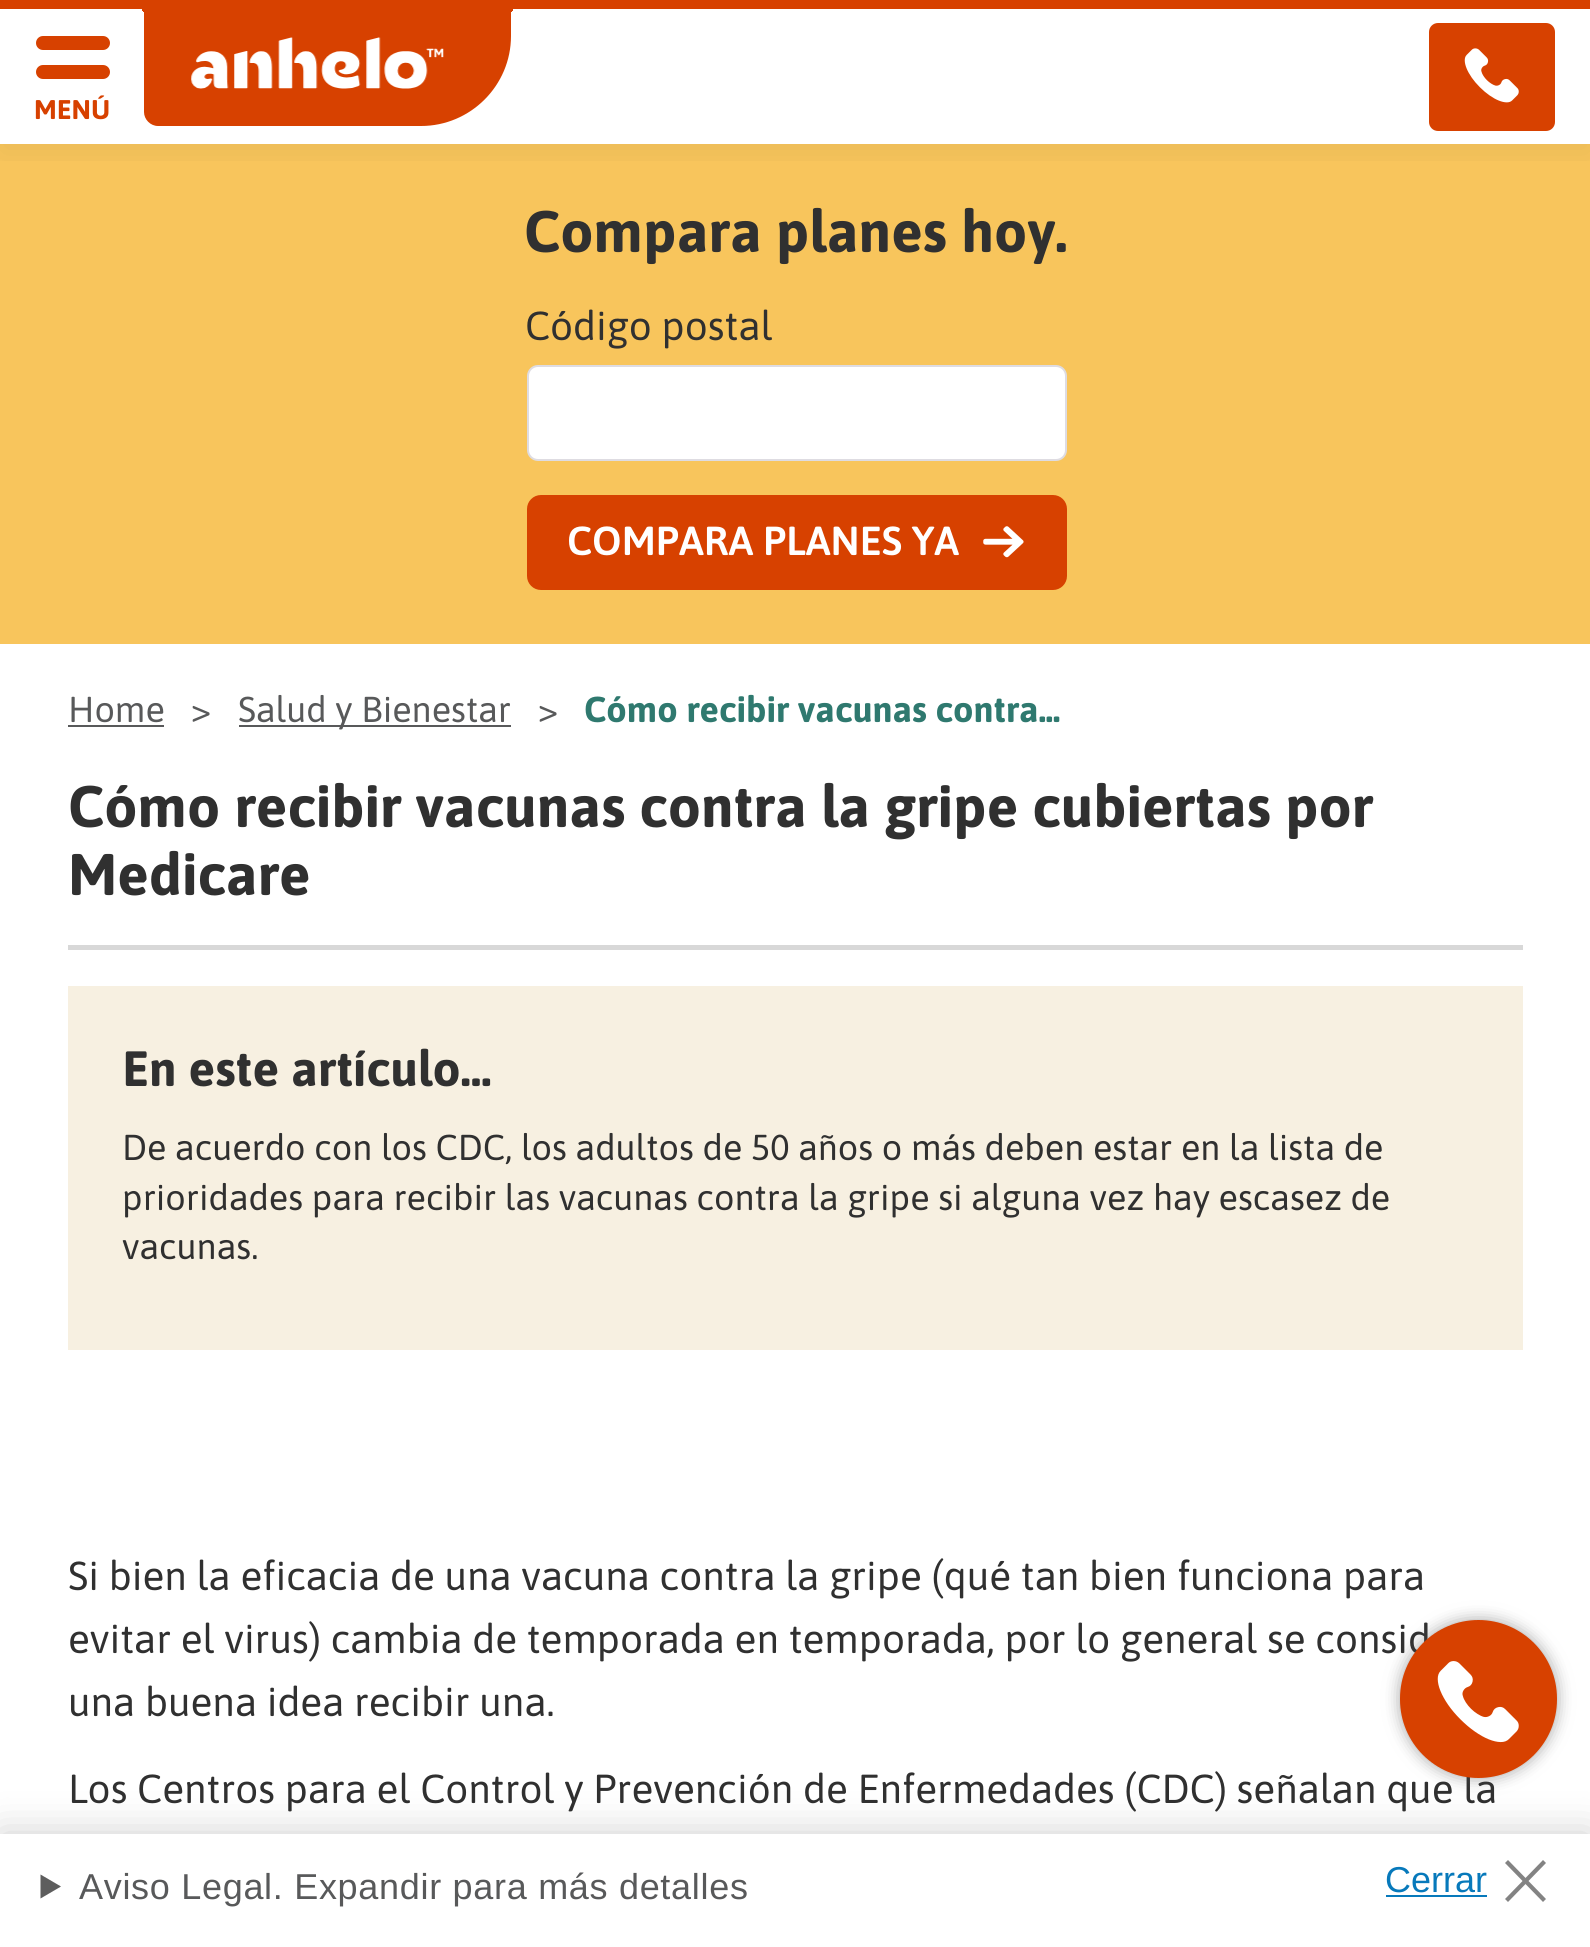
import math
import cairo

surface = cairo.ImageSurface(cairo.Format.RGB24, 1590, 1947)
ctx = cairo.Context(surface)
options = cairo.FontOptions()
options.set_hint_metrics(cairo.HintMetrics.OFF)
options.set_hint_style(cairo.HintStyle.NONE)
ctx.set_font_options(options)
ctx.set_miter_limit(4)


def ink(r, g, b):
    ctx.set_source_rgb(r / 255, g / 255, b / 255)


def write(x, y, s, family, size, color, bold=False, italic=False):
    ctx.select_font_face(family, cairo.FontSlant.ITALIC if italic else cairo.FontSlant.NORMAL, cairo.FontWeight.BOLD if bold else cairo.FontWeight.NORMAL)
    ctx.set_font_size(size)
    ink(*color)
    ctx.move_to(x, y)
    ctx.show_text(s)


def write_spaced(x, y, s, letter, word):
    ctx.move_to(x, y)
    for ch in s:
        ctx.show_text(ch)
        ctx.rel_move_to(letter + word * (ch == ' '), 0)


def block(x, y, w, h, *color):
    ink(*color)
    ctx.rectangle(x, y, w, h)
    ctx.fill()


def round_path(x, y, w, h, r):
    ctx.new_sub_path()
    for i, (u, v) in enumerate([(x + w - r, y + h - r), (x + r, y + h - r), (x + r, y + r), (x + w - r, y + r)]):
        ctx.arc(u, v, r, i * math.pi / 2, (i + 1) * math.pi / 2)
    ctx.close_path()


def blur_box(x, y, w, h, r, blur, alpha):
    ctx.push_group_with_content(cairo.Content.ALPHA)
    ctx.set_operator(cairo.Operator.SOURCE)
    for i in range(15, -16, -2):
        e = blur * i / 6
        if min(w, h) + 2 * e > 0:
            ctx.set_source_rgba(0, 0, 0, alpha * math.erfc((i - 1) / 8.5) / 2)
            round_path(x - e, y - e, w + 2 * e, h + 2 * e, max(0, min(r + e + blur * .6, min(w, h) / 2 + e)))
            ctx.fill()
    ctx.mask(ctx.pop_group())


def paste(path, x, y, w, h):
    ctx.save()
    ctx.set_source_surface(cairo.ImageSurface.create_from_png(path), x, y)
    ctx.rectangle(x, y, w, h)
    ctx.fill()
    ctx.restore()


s1 = dict(family="Asap", size=27, color=(215, 65, 0), bold=True)
s2 = dict(family="Asap", size=58.5, color=(48, 48, 48), bold=True)
s3 = dict(family="Asap", size=40.5, color=(48, 48, 48))
s4 = dict(family="Asap SemiBold", size=40.5, color=(255, 255, 255))
s5 = dict(family="Asap", size=36, color=(88, 89, 90))
s6 = dict(family="Asap", size=36, color=(47, 121, 111), bold=True)
s7 = dict(family="Asap", size=49.5, color=(48, 48, 48), bold=True)
s8 = dict(family="Asap", size=36, color=(48, 48, 48))
s9 = dict(family="Liberation Sans", size=36, color=(7, 121, 187))

ink(255, 255, 255)
ctx.paint()
block(0, 144, 1590, 500, 248, 197, 92)
ctx.save()
ctx.rectangle(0, 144, 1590, 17)
ctx.clip()
ink(0, 0, 0)
blur_box(0, 9, 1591, 144, 0, 18, 0.06)
ctx.restore()
block(0, 0, 1590, 9, 215, 65, 0)
round_path(36, 36, 74, 14, 7)
ctx.fill()
round_path(36, 65, 74, 14, 7)
ctx.fill()
write(34, 119, "MENÚ", **s1)
ctx.new_path()
ctx.move_to(144, 7)
ctx.line_to(511, 7)
ctx.line_to(511, 36)
ctx.curve_to(511, 85.5, 470.5, 126, 421, 126)
ctx.line_to(158, 126)
ctx.curve_to(150.5, 126, 144, 119.5, 144, 112)
ctx.close_path()
ctx.fill()
gradient = cairo.RadialGradient(135, 16, 0, 135, 16, 13)
gradient.add_color_stop_rgba(0, 0, 0, 0, 0)
gradient.add_color_stop_rgba(0.71, 0.843, 0.255, 0, 0)
gradient.add_color_stop_rgba(0.71, 0.843, 0.255, 0, 1)
ctx.set_source(gradient)
ctx.rectangle(139, 9, 5, 3)
ctx.fill()
gradient = cairo.RadialGradient(520, 16, 0, 520, 16, 13)
gradient.add_color_stop_rgba(0, 0, 0, 0, 0)
gradient.add_color_stop_rgba(0.71, 0.843, 0.255, 0, 0)
gradient.add_color_stop_rgba(0.71, 0.843, 0.255, 0, 1)
ctx.set_source(gradient)
ctx.rectangle(511, 9, 5, 3)
ctx.fill()
paste("pic1.png", 191, 37, 253, 52)
ink(215, 65, 0)
round_path(1429, 23, 126, 108, 9)
ctx.fill()
paste("pic2.png", 1464, 48, 55, 55)
write(524, 252, "Compara planes hoy.", **s2)
write(525, 340, "Código postal", **s3)
ink(255, 255, 255)
round_path(528, 366, 538, 94, 10)
ctx.fill_preserve()
ink(222, 220, 226)
ctx.stroke()
ink(215, 65, 0)
round_path(527, 495, 540, 95, 14)
ctx.fill()
write(567, 555, "COMPARA PLANES YA", **s4)
paste("pic3.png", 983, 526, 41, 32)
write(68, 722, "Home", **s5)
block(68, 725, 96, 2, 88, 89, 90)
write(191, 722, ">", **s5)
block(239, 725, 272, 2, 88, 89, 90)
write(238, 722, "Salud y Bienestar", **s5)
write(538, 722, ">", **s5)
write(584, 722, "Cómo recibir vacunas contra...", **s6)
write(68, 827, "Cómo recibir vacunas contra la gripe cubiertas por", **s2)
write(68, 895, "Medicare", **s2)
block(68, 945, 1455, 5, 216, 216, 216)
block(68, 986, 1455, 364, 247, 240, 225)
write(122, 1086, "En este artículo…", **s7)
write(122, 1160, "De acuerdo con los CDC, los adultos de 50 años o más deben estar en la lista de", **s8)
write(122, 1210, "prioridades para recibir las vacunas contra la gripe si alguna vez hay escasez de", **s8)
write(122, 1259, "vacunas.", **s8)
write(68, 1590, "Si bien la eficacia de una vacuna contra la gripe (qué tan bien funciona para", **s3)
write(68, 1653, "evitar el virus) cambia de temporada en temporada, por lo general se consid", **s3)
write(68, 1716, "una buena idea recibir una.", **s3)
write(68, 1803, "Los Centros para el Control y Prevención de Enfermedades (CDC) señalan que la", **s3)
ink(78, 78, 78)
blur_box(1400, 1620, 157, 158, 78.5, 8, 0.5)
ink(215, 65, 0)
round_path(1400, 1620, 157, 158, 78.5)
ctx.fill()
paste("pic4.png", 1437, 1661, 82, 82)
ink(0, 0, 0)
blur_box(0, 1834, 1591, 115, 0, 20, 0.2)
block(0, 1834, 1590, 113, 255, 255, 255)
ink(93, 93, 93)
ctx.new_path()
ctx.move_to(40.5, 1874.5)
ctx.line_to(61, 1886.5)
ctx.line_to(40.5, 1898.5)
ctx.close_path()
ctx.fill()
ctx.select_font_face("Liberation Sans")
ctx.set_font_size(36)
ink(88, 89, 90)
write_spaced(79, 1899, "Aviso Legal. Expandir para más detalles", 0.7, 0)
block(1386, 1895, 101, 2, 7, 121, 187)
write(1385, 1892, "Cerrar", **s9)
ink(131, 131, 131)
ctx.new_path()
ctx.move_to(1508, 1860)
ctx.line_to(1546, 1899)
ctx.line_to(1543, 1902)
ctx.line_to(1505, 1863)
ctx.close_path()
ctx.fill()
ctx.new_path()
ctx.move_to(1505, 1899)
ctx.line_to(1543, 1860)
ctx.line_to(1546, 1863)
ctx.line_to(1508, 1902)
ctx.close_path()
ctx.fill()
surface.write_to_png("screenshot.png")
